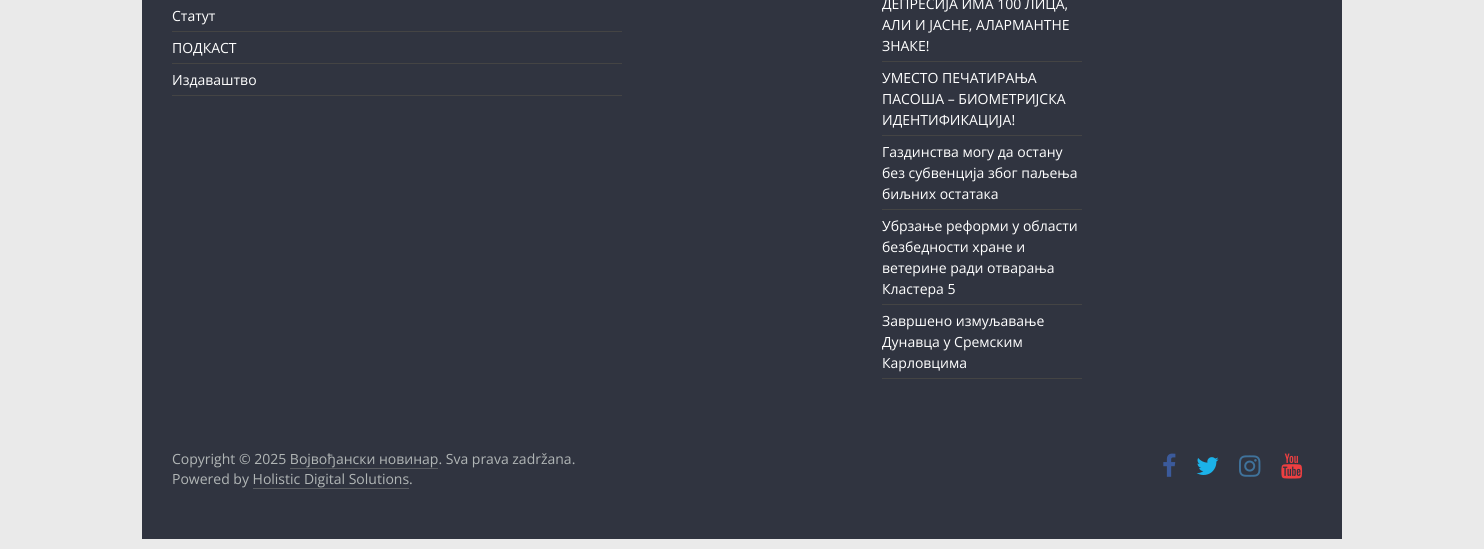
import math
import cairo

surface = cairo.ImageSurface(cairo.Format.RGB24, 1484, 549)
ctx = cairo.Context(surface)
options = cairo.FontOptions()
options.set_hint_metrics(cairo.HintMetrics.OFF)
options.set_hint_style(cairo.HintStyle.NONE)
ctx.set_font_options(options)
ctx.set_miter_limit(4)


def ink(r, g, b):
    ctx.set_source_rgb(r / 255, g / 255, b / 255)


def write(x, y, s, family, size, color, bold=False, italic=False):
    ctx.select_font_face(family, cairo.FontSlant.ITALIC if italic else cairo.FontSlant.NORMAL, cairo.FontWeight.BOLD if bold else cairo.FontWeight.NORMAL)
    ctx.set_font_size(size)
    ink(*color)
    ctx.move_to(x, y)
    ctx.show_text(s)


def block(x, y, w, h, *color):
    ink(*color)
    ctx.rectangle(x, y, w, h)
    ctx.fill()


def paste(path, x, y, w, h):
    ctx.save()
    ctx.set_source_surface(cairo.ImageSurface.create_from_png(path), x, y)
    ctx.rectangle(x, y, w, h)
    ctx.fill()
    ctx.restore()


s1 = dict(family="Open Sans", size=14, color=(255, 255, 255))
s2 = dict(family="Open Sans", size=14, color=(177, 182, 182))

ink(234, 234, 234)
ctx.paint()
block(142, 0, 1200, 539, 48, 52, 64)
block(172, 31, 450, 1, 68, 68, 68)
write(172, 21, "Статут", **s1)
block(172, 63, 450, 1, 68, 68, 68)
write(172, 53, "ПОДКАСТ", **s1)
block(172, 95, 450, 1, 68, 68, 68)
write(172, 85, "Издаваштво", **s1)
block(882, 61, 200, 1, 68, 68, 68)
write(882, 9, "ДЕПРЕСИЈА ИМА 100 ЛИЦА,", **s1)
write(882, 30, "АЛИ И ЈАСНЕ, АЛАРМАНТНЕ", **s1)
write(882, 51, "ЗНАКЕ!", **s1)
block(882, 135, 200, 1, 68, 68, 68)
write(882, 83, "УМЕСТО ПЕЧАТИРАЊА", **s1)
write(882, 104, "ПАСОША – БИОМЕТРИЈСКА", **s1)
write(882, 125, "ИДЕНТИФИКАЦИЈА!", **s1)
block(882, 209, 200, 1, 68, 68, 68)
write(882, 157, "Газдинства могу да остану", **s1)
write(882, 178, "без субвенција због паљења", **s1)
write(882, 199, "биљних остатака", **s1)
block(882, 304, 200, 1, 68, 68, 68)
write(882, 231, "Убрзање реформи у области", **s1)
write(882, 252, "безбедности хране и", **s1)
write(882, 273, "ветерине ради отварања", **s1)
write(882, 294, "Кластера 5", **s1)
block(882, 378, 200, 1, 68, 68, 68)
write(882, 326, "Завршено измуљавање", **s1)
write(882, 347, "Дунавца у Сремским", **s1)
write(882, 368, "Карловцима", **s1)
write(172, 464, "Copyright © 2025 Војвођански новинар. Sva prava zadržana.", **s2)
block(290, 468, 148, 1, 90, 93, 98)
write(172, 484, "Powered by Holistic Digital Solutions.", **s2)
block(253, 488, 156, 1, 90, 93, 98)
paste("pic1.png", 1163, 453, 13, 24)
paste("pic2.png", 1196, 457, 23, 18)
paste("pic3.png", 1239, 455, 22, 22)
paste("pic4.png", 1281, 453, 22, 26)
surface.write_to_png("screenshot.png")
